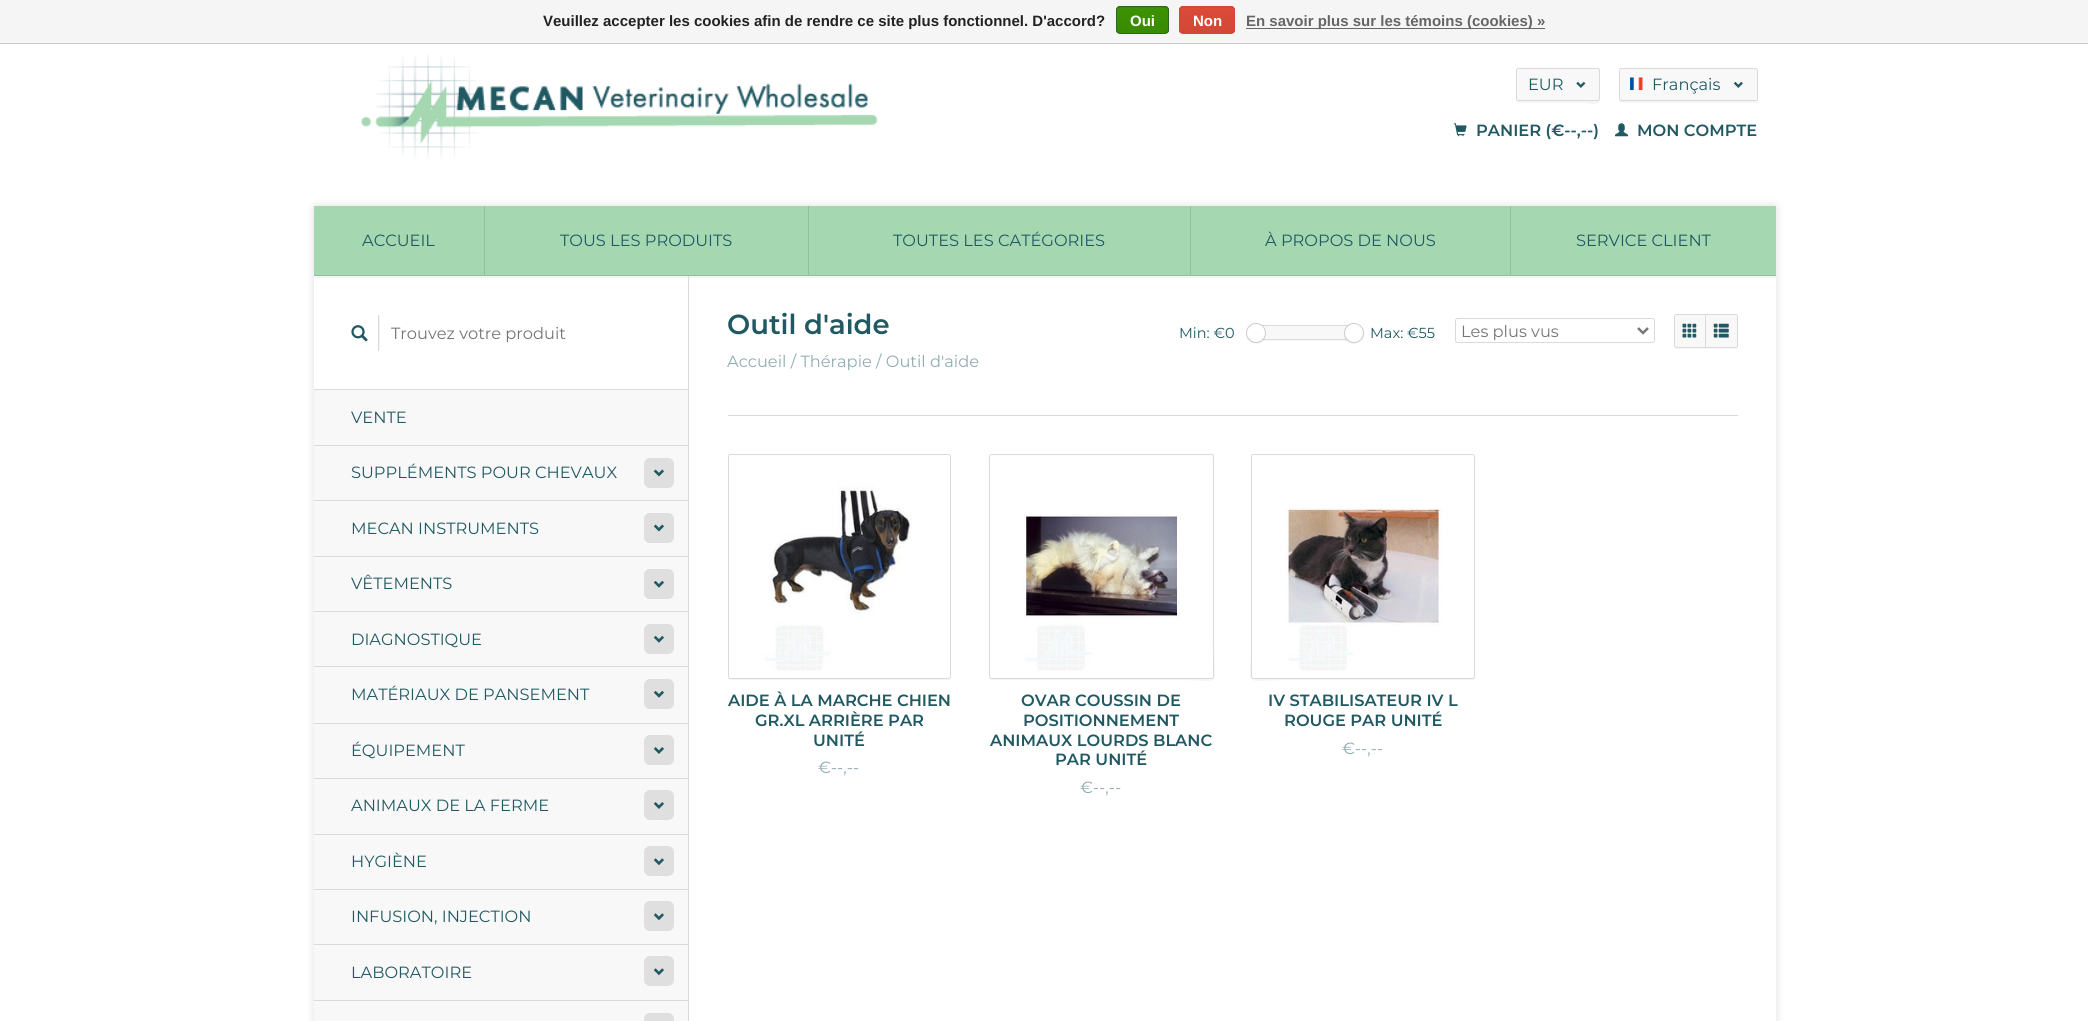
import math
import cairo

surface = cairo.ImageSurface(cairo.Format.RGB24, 2088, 1021)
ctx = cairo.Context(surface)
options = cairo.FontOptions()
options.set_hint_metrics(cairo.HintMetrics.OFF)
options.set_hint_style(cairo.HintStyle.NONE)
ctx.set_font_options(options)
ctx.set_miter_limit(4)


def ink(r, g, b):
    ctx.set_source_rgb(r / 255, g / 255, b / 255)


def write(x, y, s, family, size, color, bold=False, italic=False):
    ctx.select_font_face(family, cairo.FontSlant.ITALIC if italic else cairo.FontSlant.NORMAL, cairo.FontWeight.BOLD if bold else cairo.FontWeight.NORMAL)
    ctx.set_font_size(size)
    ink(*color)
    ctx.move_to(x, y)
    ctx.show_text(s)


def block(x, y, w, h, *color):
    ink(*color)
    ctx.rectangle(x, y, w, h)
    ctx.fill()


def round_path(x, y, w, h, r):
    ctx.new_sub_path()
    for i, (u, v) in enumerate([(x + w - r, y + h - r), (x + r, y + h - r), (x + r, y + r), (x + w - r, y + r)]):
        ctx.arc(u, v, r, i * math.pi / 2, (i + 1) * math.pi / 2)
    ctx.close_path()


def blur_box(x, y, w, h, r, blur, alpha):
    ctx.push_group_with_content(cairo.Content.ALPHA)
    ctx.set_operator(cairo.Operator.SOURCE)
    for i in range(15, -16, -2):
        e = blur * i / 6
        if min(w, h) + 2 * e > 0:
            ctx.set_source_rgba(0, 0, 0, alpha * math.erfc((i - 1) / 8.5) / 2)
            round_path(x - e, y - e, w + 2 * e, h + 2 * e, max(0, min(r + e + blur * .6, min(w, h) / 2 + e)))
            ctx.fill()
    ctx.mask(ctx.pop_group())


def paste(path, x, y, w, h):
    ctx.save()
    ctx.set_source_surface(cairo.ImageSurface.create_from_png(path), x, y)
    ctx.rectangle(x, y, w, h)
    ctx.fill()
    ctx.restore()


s1 = dict(family="Liberation Sans", size=15, color=(34, 34, 34), bold=True)
s2 = dict(family="Liberation Sans", size=15, color=(255, 255, 255), bold=True)
s3 = dict(family="Liberation Sans", size=15, color=(102, 102, 102), bold=True)
s4 = dict(family="Montserrat", size=16.25, color=(33, 89, 99))
s5 = dict(family="Montserrat SemiBold", size=16.25, color=(33, 89, 99))
s6 = dict(family="Montserrat", size=16.25, color=(117, 117, 117))
s7 = dict(family="Montserrat SemiBold", size=27.5, color=(33, 89, 99))
s8 = dict(family="Montserrat", size=16.25, color=(144, 172, 177))
s9 = dict(family="Montserrat", size=14.5, color=(33, 89, 99))

ink(255, 255, 255)
ctx.paint()
block(0, 0, 2088, 43, 245, 245, 245)
block(0, 43, 2088, 1, 204, 204, 204)
write(543, 26, "Veuillez accepter les cookies afin de rendre ce site plus fonctionnel. D'accord?", **s1)
ctx.save()
round_path(1116, 6, 53, 28, 4)
ctx.clip()
gradient = cairo.LinearGradient(1143, -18, 1143, 7.5)
gradient.add_color_stop_rgba(0, 0.235, 0.576, 0, 1)
gradient.add_color_stop_rgba(1, 0.224, 0.541, 0, 1)
ctx.set_source(gradient)
ctx.rectangle(1116, 6, 53, 2)
ctx.fill()
gradient = cairo.LinearGradient(1143, 7.5, 1143, 33)
gradient.add_color_stop_rgba(0, 0.235, 0.576, 0, 1)
gradient.add_color_stop_rgba(1, 0.224, 0.541, 0, 1)
ctx.set_source(gradient)
ctx.rectangle(1116, 8, 53, 25)
ctx.fill()
ctx.restore()
round_path(1116.5, 6.5, 52, 27, 3.5)
ink(41, 105, 29)
ctx.set_line_width(1)
ctx.stroke()
write(1130, 26, "Oui", **s2)
ctx.save()
round_path(1179, 6, 56, 28, 4)
ctx.clip()
gradient = cairo.LinearGradient(1207, -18, 1207, 7.5)
gradient.add_color_stop_rgba(0, 0.863, 0.29, 0.22, 1)
gradient.add_color_stop_rgba(1, 0.82, 0.282, 0.212, 1)
ctx.set_source(gradient)
ctx.rectangle(1179, 6, 56, 2)
ctx.fill()
gradient = cairo.LinearGradient(1207, 7.5, 1207, 33)
gradient.add_color_stop_rgba(0, 0.863, 0.29, 0.22, 1)
gradient.add_color_stop_rgba(1, 0.82, 0.282, 0.212, 1)
ctx.set_source(gradient)
ctx.rectangle(1179, 8, 56, 25)
ctx.fill()
ctx.restore()
round_path(1179.5, 6.5, 55, 27, 3.5)
ink(209, 72, 54)
ctx.stroke()
write(1193, 26, "Non", **s2)
block(1246, 28, 299, 1, 102, 102, 102)
write(1246, 26, "En savoir plus sur les témoins (cookies) »", **s3)
paste("pic1.png", 361, 54, 517, 105)
ink(245, 245, 245)
ctx.new_path()
ctx.move_to(1516, 70)
ctx.line_to(1516, 91)
ctx.curve_to(1516, 106, 1514, 103, 1532, 103)
ctx.line_to(1584, 103)
ctx.curve_to(1591, 103, 1600, 107, 1600, 99)
ctx.curve_to(1600, 100, 1599, 101, 1598, 101)
ctx.line_to(1519, 101)
ctx.curve_to(1517, 101, 1516, 100, 1516, 99)
ctx.close_path()
ctx.fill()
ink(248, 248, 248)
round_path(1516.5, 68.5, 83, 32, 2)
ctx.fill_preserve()
ink(218, 218, 218)
ctx.stroke()
write(1528, 90, "EUR", **s4)
paste("pic2.png", 1576, 81, 10, 7)
ink(245, 245, 245)
ctx.new_path()
ctx.move_to(1619, 100)
ctx.curve_to(1619, 102, 1620, 103, 1622, 103)
ctx.line_to(1756, 103)
ctx.curve_to(1757, 103, 1758, 102, 1758, 100)
ctx.line_to(1758, 72)
ctx.line_to(1758, 70)
ctx.line_to(1758, 99)
ctx.curve_to(1758, 100, 1756, 101, 1755, 101)
ctx.line_to(1621, 101)
ctx.curve_to(1620, 101, 1619, 101, 1619, 100)
ctx.close_path()
ctx.fill()
ink(248, 248, 248)
round_path(1619.5, 68.5, 138, 32, 2)
ctx.fill_preserve()
ink(218, 218, 218)
ctx.stroke()
paste("pic3.png", 1630, 77, 13, 13)
write(1652, 90, "Français", **s4)
paste("pic4.png", 1733, 81, 10, 7)
paste("pic5.png", 1453, 123, 14, 14)
write(1476, 136, "PANIER (€--,--)", **s5)
paste("pic6.png", 1615, 123, 13, 14)
write(1637, 136, "MON COMPTE", **s5)
ink(0, 0, 0)
blur_box(314, 206, 1462, 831, 2.5, 4.5, 0.13)
block(314, 278, 1462, 743, 255, 255, 255)
block(314, 276, 1462, 2, 245, 245, 245)
block(314, 275, 1462, 1, 145, 190, 155)
block(314, 206, 170, 69, 165, 216, 177)
block(484, 206, 1, 69, 145, 190, 155)
write(362, 246, "ACCUEIL", **s4)
block(485, 206, 323, 69, 165, 216, 177)
block(808, 206, 1, 69, 145, 190, 155)
write(560, 246, "TOUS LES PRODUITS", **s4)
block(809, 206, 381, 69, 165, 216, 177)
block(1190, 206, 1, 69, 145, 190, 155)
write(893, 246, "TOUTES LES CATÉGORIES", **s4)
block(1191, 206, 319, 69, 165, 216, 177)
block(1510, 206, 1, 69, 145, 190, 155)
write(1265, 246, "À PROPOS DE NOUS", **s4)
block(1511, 206, 265, 69, 165, 216, 177)
write(1576, 246, "SERVICE CLIENT", **s4)
block(688, 276, 1, 745, 218, 218, 218)
ctx.save()
ctx.rectangle(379, 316, 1, 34)
ctx.clip()
ink(0, 0, 0)
blur_box(345, 316, 35, 34, 0, 0.5, 0.06)
ctx.restore()
block(378, 315, 1, 36, 218, 218, 218)
paste("pic7.png", 351, 325, 17, 17)
write(391, 339, "Trouvez votre produit", **s6)
block(314, 390, 374, 55, 248, 248, 248)
block(314, 389, 374, 1, 218, 218, 218)
write(351, 423, "VENTE", **s4)
block(314, 446, 374, 54, 248, 248, 248)
block(314, 445, 374, 1, 218, 218, 218)
write(351, 478, "SUPPLÉMENTS POUR CHEVAUX", **s4)
ink(223, 223, 223)
round_path(644, 458, 30, 30, 6)
ctx.fill()
paste("pic8.png", 653, 469, 11, 8)
block(314, 501, 374, 55, 248, 248, 248)
block(314, 500, 374, 1, 218, 218, 218)
write(351, 534, "MECAN INSTRUMENTS", **s4)
ink(223, 223, 223)
round_path(644, 513, 30, 30, 6)
ctx.fill()
paste("pic8.png", 653, 524, 11, 8)
block(314, 557, 374, 54, 248, 248, 248)
block(314, 556, 374, 1, 218, 218, 218)
write(351, 589, "VÊTEMENTS", **s4)
ink(223, 223, 223)
round_path(644, 569, 30, 30, 6)
ctx.fill()
paste("pic9.png", 653, 580, 11, 8)
block(314, 612, 374, 54, 248, 248, 248)
block(314, 611, 374, 1, 218, 218, 218)
write(351, 645, "DIAGNOSTIQUE", **s4)
ink(223, 223, 223)
round_path(644, 624, 30, 30, 6)
ctx.fill()
paste("pic9.png", 653, 635, 11, 8)
block(314, 667, 374, 56, 248, 248, 248)
block(314, 666, 374, 1, 218, 218, 218)
write(351, 700, "MATÉRIAUX DE PANSEMENT", **s4)
ink(223, 223, 223)
round_path(644, 679, 30, 30, 6)
ctx.fill()
paste("pic9.png", 653, 690, 11, 8)
block(314, 724, 374, 54, 248, 248, 248)
block(314, 723, 374, 1, 218, 218, 218)
write(351, 756, "ÉQUIPEMENT", **s4)
ink(223, 223, 223)
round_path(644, 735, 30, 30, 6)
ctx.fill()
paste("pic10.png", 653, 747, 11, 7)
block(314, 779, 374, 55, 248, 248, 248)
block(314, 778, 374, 1, 218, 218, 218)
write(351, 811, "ANIMAUX DE LA FERME", **s4)
ink(223, 223, 223)
round_path(644, 790, 30, 30, 6)
ctx.fill()
paste("pic10.png", 653, 802, 11, 7)
block(314, 835, 374, 54, 248, 248, 248)
block(314, 834, 374, 1, 218, 218, 218)
write(351, 867, "HYGIÈNE", **s4)
ink(223, 223, 223)
round_path(644, 846, 30, 30, 6)
ctx.fill()
paste("pic11.png", 653, 858, 11, 8)
block(314, 890, 374, 54, 248, 248, 248)
block(314, 889, 374, 1, 218, 218, 218)
write(351, 922, "INFUSION, INJECTION", **s4)
ink(223, 223, 223)
round_path(644, 901, 30, 30, 6)
ctx.fill()
paste("pic11.png", 653, 913, 11, 8)
block(314, 945, 374, 55, 248, 248, 248)
block(314, 944, 374, 1, 218, 218, 218)
write(351, 978, "LABORATOIRE", **s4)
ink(223, 223, 223)
round_path(644, 956, 30, 30, 6)
ctx.fill()
paste("pic11.png", 653, 968, 11, 8)
block(314, 1001, 374, 20, 248, 248, 248)
block(314, 1000, 374, 1, 218, 218, 218)
ink(223, 223, 223)
round_path(644, 1013, 30, 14, 6)
ctx.fill()
write(727, 334, "Outil d'aide", **s7)
write(727, 367, "Accueil / Thérapie / Outil d'aide", **s8)
write(1179, 338, "Min: €0", **s9)
block(1258, 340, 97, 1, 245, 245, 245)
block(1263, 326, 84, 13, 248, 248, 248)
ctx.rectangle(1258.5, 325.5, 96, 14)
ink(218, 218, 218)
ctx.stroke()
ctx.set_source_rgba(0, 0, 0, 0.04)
ctx.new_path()
ctx.move_to(1246.5, 331.5)
ctx.curve_to(1243, 345.5, 1264.5, 349, 1266, 335)
ctx.curve_to(1263, 346.5, 1245, 344, 1246.5, 331.5)
ctx.close_path()
ctx.fill()
ink(255, 255, 255)
ctx.arc(1256, 333, 9.5, 0, 2 * math.pi)
ctx.fill_preserve()
ink(203, 203, 203)
ctx.stroke()
ctx.set_source_rgba(0, 0, 0, 0.04)
ctx.new_path()
ctx.move_to(1344, 335)
ctx.curve_to(1345.5, 349, 1367, 345.5, 1363.5, 331.5)
ctx.curve_to(1365, 344, 1347, 346.5, 1344, 335)
ctx.close_path()
ctx.fill()
ink(255, 255, 255)
ctx.arc(1354, 333, 9.5, 0, 2 * math.pi)
ctx.fill_preserve()
ink(203, 203, 203)
ctx.stroke()
write(1370, 338, "Max: €55", **s9)
round_path(1455.5, 318.5, 199, 24, 2)
ink(218, 218, 218)
ctx.stroke()
ctx.new_path()
ctx.move_to(1638, 328)
ctx.line_to(1643, 333)
ctx.line_to(1648, 328)
ink(119, 119, 119)
ctx.set_line_width(2.5)
ctx.stroke()
write(1461, 337, "Les plus vus", **s6)
ink(245, 245, 245)
ctx.new_path()
ctx.move_to(1674, 346)
ctx.line_to(1674, 346.5)
ctx.curve_to(1674, 348, 1675, 349, 1676.5, 349)
ctx.line_to(1706, 349)
ctx.line_to(1706, 347.5)
ctx.line_to(1676, 347.5)
ctx.curve_to(1675.5, 347.5, 1674.5, 347, 1674, 346)
ctx.close_path()
ctx.fill()
ink(248, 248, 248)
ctx.new_path()
ctx.move_to(1676.5, 314.5)
ctx.line_to(1705.5, 314.5)
ctx.line_to(1705.5, 347.5)
ctx.line_to(1676.5, 347.5)
ctx.curve_to(1675.5, 347.5, 1674.5, 346.5, 1674.5, 345.5)
ctx.line_to(1674.5, 316.5)
ctx.curve_to(1674.5, 315.5, 1675.5, 314.5, 1676.5, 314.5)
ctx.close_path()
ctx.fill_preserve()
ink(218, 218, 218)
ctx.set_line_width(1)
ctx.stroke()
paste("pic12.png", 1682, 323, 15, 15)
ctx.set_source_rgba(0, 0, 0, 0.04)
ctx.new_path()
ctx.move_to(1705, 347.5)
ctx.line_to(1705, 349)
ctx.line_to(1735.5, 349)
ctx.curve_to(1737, 349, 1738, 348, 1738, 346.5)
ctx.line_to(1738, 317.5)
ctx.line_to(1737.5, 316)
ctx.line_to(1737.5, 340)
ctx.curve_to(1737.5, 342, 1738.5, 347, 1735.5, 347.5)
ctx.close_path()
ctx.fill()
ink(248, 248, 248)
ctx.new_path()
ctx.move_to(1705.5, 314.5)
ctx.line_to(1735.5, 314.5)
ctx.curve_to(1736.5, 314.5, 1737.5, 315.5, 1737.5, 316.5)
ctx.line_to(1737.5, 345.5)
ctx.curve_to(1737.5, 346.5, 1736.5, 347.5, 1735.5, 347.5)
ctx.line_to(1705.5, 347.5)
ctx.close_path()
ctx.fill_preserve()
ink(218, 218, 218)
ctx.stroke()
paste("pic13.png", 1713, 323, 16, 15)
block(728, 415, 1010, 1, 218, 218, 218)
ink(245, 245, 245)
ctx.new_path()
ctx.move_to(728, 678)
ctx.curve_to(728, 679, 729, 680, 730, 680)
ctx.line_to(948, 680)
ctx.curve_to(950, 680, 951, 679, 951, 678)
ctx.line_to(951, 677)
ctx.curve_to(951, 678, 950, 679, 949, 679)
ctx.line_to(730, 679)
ctx.close_path()
ctx.fill()
round_path(728.5, 454.5, 222, 224, 2)
ink(218, 218, 218)
ctx.stroke()
paste("pic14.png", 729, 455, 183, 216)
write(728, 706, "AIDE À LA MARCHE CHIEN", **s5)
write(755, 726, "GR.XL ARRIÈRE PAR", **s5)
write(813, 746, "UNITÉ", **s5)
write(818, 773, "€--,--", **s8)
ink(245, 245, 245)
ctx.new_path()
ctx.move_to(989, 677)
ctx.curve_to(989, 678, 990, 679, 991, 680)
ctx.line_to(1175, 680)
ctx.curve_to(1225, 680, 1214, 691, 1214, 641)
ctx.line_to(1214, 456)
ctx.line_to(1214, 676)
ctx.curve_to(1214, 678, 1213, 679, 1211, 679)
ctx.line_to(991, 679)
ctx.curve_to(990, 679, 989, 678, 989, 677)
ctx.close_path()
ctx.fill()
round_path(989.5, 454.5, 224, 224, 2)
ink(218, 218, 218)
ctx.stroke()
paste("pic15.png", 1023, 514, 158, 157)
write(1021, 706, "OVAR COUSSIN DE", **s5)
write(1023, 726, "POSITIONNEMENT", **s5)
write(990, 746, "ANIMAUX LOURDS BLANC", **s5)
write(1055, 765, "PAR UNITÉ", **s5)
write(1080, 793, "€--,--", **s8)
ink(245, 245, 245)
ctx.new_path()
ctx.move_to(1251, 456)
ctx.line_to(1251, 641)
ctx.curve_to(1251, 691, 1240, 680, 1290, 680)
ctx.line_to(1472, 680)
ctx.curve_to(1475, 680, 1475, 678, 1475, 676)
ctx.curve_to(1475, 678, 1474, 679, 1472, 679)
ctx.line_to(1254, 679)
ctx.curve_to(1252, 679, 1251, 678, 1251, 676)
ctx.close_path()
ctx.fill()
round_path(1251.5, 454.5, 223, 224, 2)
ink(218, 218, 218)
ctx.stroke()
paste("pic16.png", 1285, 508, 158, 163)
write(1268, 706, "IV STABILISATEUR IV L", **s5)
write(1284, 726, "ROUGE PAR UNITÉ", **s5)
write(1342, 754, "€--,--", **s8)
surface.write_to_png("screenshot.png")
